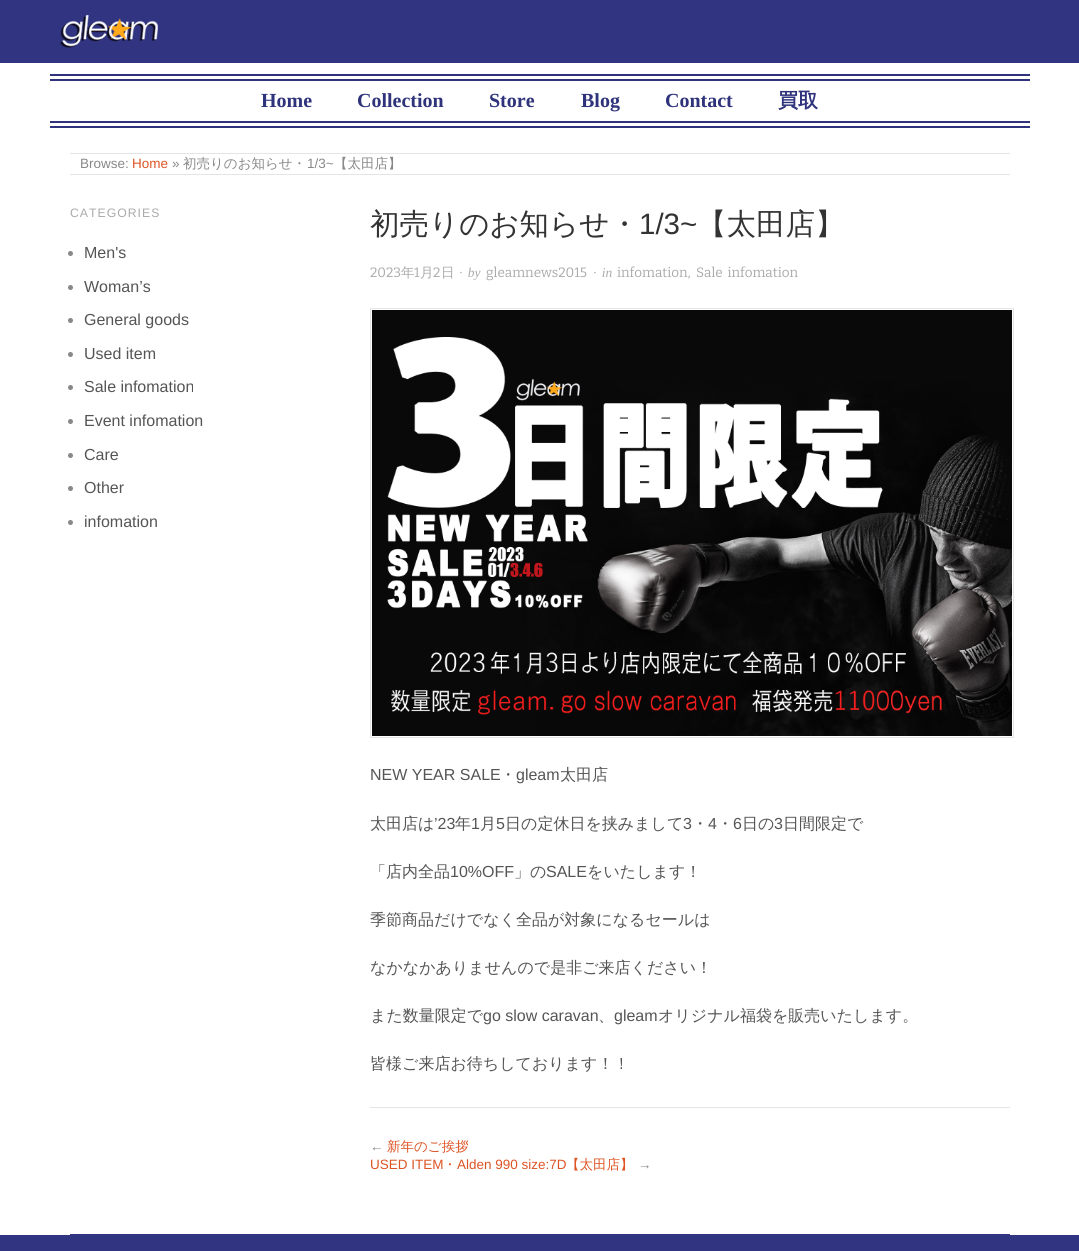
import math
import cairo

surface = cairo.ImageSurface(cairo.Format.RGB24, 1079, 1251)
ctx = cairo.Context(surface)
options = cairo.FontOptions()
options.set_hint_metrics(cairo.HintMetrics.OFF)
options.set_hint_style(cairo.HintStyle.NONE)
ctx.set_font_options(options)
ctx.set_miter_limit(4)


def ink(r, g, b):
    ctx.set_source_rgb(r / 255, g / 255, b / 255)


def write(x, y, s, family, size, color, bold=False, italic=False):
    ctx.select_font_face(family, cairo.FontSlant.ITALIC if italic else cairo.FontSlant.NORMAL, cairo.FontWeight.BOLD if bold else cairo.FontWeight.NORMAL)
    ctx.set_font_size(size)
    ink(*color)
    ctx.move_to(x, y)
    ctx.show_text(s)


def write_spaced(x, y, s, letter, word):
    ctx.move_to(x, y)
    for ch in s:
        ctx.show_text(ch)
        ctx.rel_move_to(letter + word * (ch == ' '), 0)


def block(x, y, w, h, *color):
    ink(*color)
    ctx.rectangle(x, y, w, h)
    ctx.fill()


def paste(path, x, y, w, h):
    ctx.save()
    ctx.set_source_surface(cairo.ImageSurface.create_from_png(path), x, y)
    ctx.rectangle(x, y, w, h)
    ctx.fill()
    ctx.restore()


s1 = dict(family="Liberation Serif", size=20, color=(46, 51, 123), bold=True)
s2 = dict(family="WenQuanYi Zen Hei", size=20, color=(46, 51, 123), bold=True)
s3 = dict(family="Liberation Sans", size=13.5, color=(136, 136, 136))
s4 = dict(family="Liberation Sans", size=13.5, color=(221, 84, 36))
s5 = dict(family="WenQuanYi Zen Hei Medium", size=13.5, color=(136, 136, 136))
s6 = dict(family="Liberation Sans", size=16, color=(85, 85, 85))
s7 = dict(family="WenQuanYi Zen Hei Medium", size=29.5, color=(51, 51, 51))
s8 = dict(family="Liberation Sans", size=29.5, color=(51, 51, 51))
s9 = dict(family="Bitter Thin", size=13.5, color=(170, 170, 170))
s10 = dict(family="WenQuanYi Zen Hei Medium", size=13.5, color=(170, 170, 170))
s11 = dict(family="WenQuanYi Zen Hei Medium", size=16, color=(85, 85, 85))
s12 = dict(family="WenQuanYi Zen Hei Medium", size=13.5, color=(221, 84, 36))

ink(255, 255, 255)
ctx.paint()
block(0, 0, 1079, 63, 49, 53, 129)
paste("pic1.png", 60, 15, 98, 33)
block(50, 74, 980, 2, 46, 51, 123)
block(50, 79, 980, 2, 46, 51, 123)
write(261, 107, "Home", **s1)
write(357, 107, "Collection", **s1)
write(489, 107, "Store", **s1)
write(581, 107, "Blog", **s1)
write(665, 107, "Contact", **s1)
write(778, 107, "買取", **s2)
block(50, 121, 980, 2, 46, 51, 123)
block(50, 126, 980, 2, 46, 51, 123)
block(70, 153, 940, 1, 229, 229, 229)
block(70, 174, 940, 1, 229, 229, 229)
write(80, 168, "Browse:", **s3)
write(132, 168, "Home", **s4)
write(172, 168, "»", **s3)
write(183, 168, "初売りのお知らせ・", **s5)
write(307, 168, "1/3~", **s3)
write(334, 168, "【太田店】", **s5)
ctx.select_font_face("Liberation Sans")
ctx.set_font_size(12.25)
ink(170, 170, 170)
write_spaced(70, 217, "CATEGORIES", 1, 0)
ink(136, 136, 136)
ctx.new_path()
ctx.arc(70.5, 253.5, 2.5, 0, 2 * math.pi)
ctx.fill()
write(84, 258, "Men's", **s6)
ink(136, 136, 136)
ctx.new_path()
ctx.arc(70.5, 287.5, 2.5, 0, 2 * math.pi)
ctx.fill()
write(84, 292, "Woman’s", **s6)
ink(136, 136, 136)
ctx.new_path()
ctx.arc(70.5, 320.5, 2.5, 0, 2 * math.pi)
ctx.fill()
write(84, 325, "General goods", **s6)
ink(136, 136, 136)
ctx.new_path()
ctx.arc(70.5, 354.5, 2.5, 0, 2 * math.pi)
ctx.fill()
write(84, 359, "Used item", **s6)
ink(136, 136, 136)
ctx.new_path()
ctx.arc(70.5, 387.5, 2.5, 0, 2 * math.pi)
ctx.fill()
write(84, 392, "Sale infomation", **s6)
ink(136, 136, 136)
ctx.new_path()
ctx.arc(70.5, 421.5, 2.5, 0, 2 * math.pi)
ctx.fill()
write(84, 426, "Event infomation", **s6)
ink(136, 136, 136)
ctx.new_path()
ctx.arc(70.5, 455.5, 2.5, 0, 2 * math.pi)
ctx.fill()
write(84, 460, "Care", **s6)
ink(136, 136, 136)
ctx.new_path()
ctx.arc(70.5, 488.5, 2.5, 0, 2 * math.pi)
ctx.fill()
write(84, 493, "Other", **s6)
ink(136, 136, 136)
ctx.new_path()
ctx.arc(70.5, 522.5, 2.5, 0, 2 * math.pi)
ctx.fill()
write(84, 527, "infomation", **s6)
block(370, 1107, 640, 1, 229, 229, 229)
write(370, 234, "初売りのお知らせ・", **s7)
write(639, 234, "1/3~", **s8)
write(697, 234, "【太田店】", **s7)
write(370, 277, "2023", **s9)
write(401, 277, "年", **s10)
write(414, 277, "1", **s9)
write(420, 277, "月", **s10)
write(433, 277, "2", **s9)
write(441, 277, "日", **s10)
ctx.select_font_face("Liberation Serif", cairo.FontSlant.ITALIC)
write_spaced(459, 277, "· by", 0, 2)
write(486, 277, "gleamnews2015", **s9)
ctx.select_font_face("Liberation Serif", cairo.FontSlant.ITALIC)
write_spaced(593, 277, "· in", 0, 2)
write(617, 277, "infomation,", **s9)
write_spaced(696, 277, "Sale infomation", 0, 2)
ctx.rectangle(370.5, 308.5, 643, 429)
ink(229, 229, 229)
ctx.set_line_width(1)
ctx.stroke()
paste("pic2.png", 372, 310, 640, 426)
write(370, 780, "NEW YEAR SALE", **s6)
write(500, 780, "・", **s11)
write(516, 780, "gleam", **s6)
write(560, 780, "太田店", **s11)
write(370, 829, "太田店は", **s11)
write(434, 829, "’23", **s6)
write(455, 829, "年", **s11)
write(471, 829, "1", **s6)
write(480, 829, "月", **s11)
write(496, 829, "5", **s6)
write(505, 829, "日の定休日を挟みまして", **s11)
write(683, 829, "3", **s6)
write(692, 829, "・", **s11)
write(708, 829, "4", **s6)
write(717, 829, "・", **s11)
write(733, 829, "6", **s6)
write(742, 829, "日の", **s11)
write(774, 829, "3", **s6)
write(783, 829, "日間限定で", **s11)
write(370, 877, "「店内全品", **s11)
write(450, 877, "10%OFF", **s6)
write(514, 877, "」の", **s11)
write(546, 877, "SALE", **s6)
write(587, 877, "をいたします！", **s11)
write(370, 925, "季節商品だけでなく全品が対象になるセールは", **s11)
write(370, 973, "なかなかありませんので是非ご来店ください！", **s11)
write(370, 1021, "また数量限定で", **s11)
write(483, 1021, "go slow caravan", **s6)
write(598, 1021, "、", **s11)
write(614, 1021, "gleam", **s6)
write(658, 1021, "オリジナル福袋を販売いたします。", **s11)
write(370, 1069, "皆様ご来店お待ちしております！！", **s11)
write(370, 1151, "←", **s3)
write(387, 1151, "新年のご挨拶", **s12)
write(370, 1169, "USED ITEM", **s4)
write(443, 1169, "・", **s12)
write(457, 1169, "Alden 990 size:7D", **s4)
write(566, 1169, "【太田店】", **s12)
write(638, 1169, "→", **s3)
block(70, 1234, 940, 1, 49, 53, 129)
block(0, 1235, 1079, 16, 49, 53, 129)
surface.write_to_png("screenshot.png")
